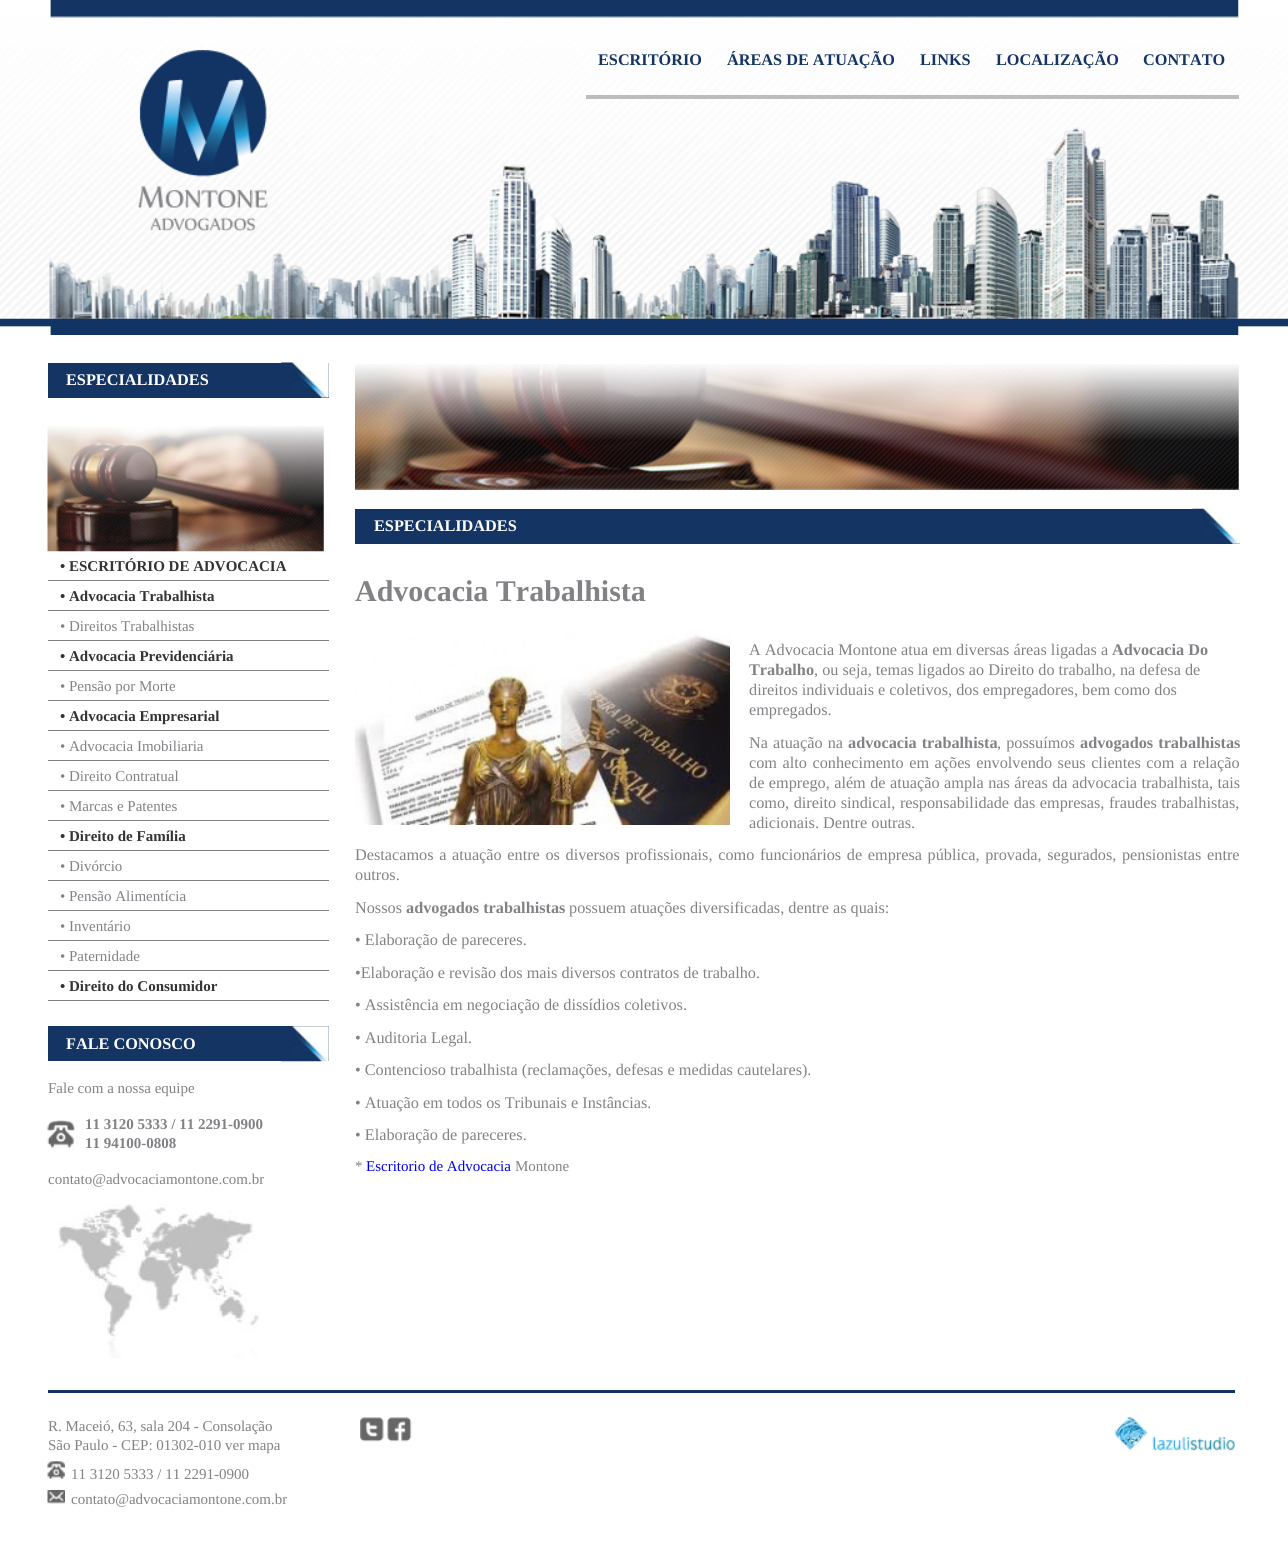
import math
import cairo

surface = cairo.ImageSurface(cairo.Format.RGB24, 1288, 1558)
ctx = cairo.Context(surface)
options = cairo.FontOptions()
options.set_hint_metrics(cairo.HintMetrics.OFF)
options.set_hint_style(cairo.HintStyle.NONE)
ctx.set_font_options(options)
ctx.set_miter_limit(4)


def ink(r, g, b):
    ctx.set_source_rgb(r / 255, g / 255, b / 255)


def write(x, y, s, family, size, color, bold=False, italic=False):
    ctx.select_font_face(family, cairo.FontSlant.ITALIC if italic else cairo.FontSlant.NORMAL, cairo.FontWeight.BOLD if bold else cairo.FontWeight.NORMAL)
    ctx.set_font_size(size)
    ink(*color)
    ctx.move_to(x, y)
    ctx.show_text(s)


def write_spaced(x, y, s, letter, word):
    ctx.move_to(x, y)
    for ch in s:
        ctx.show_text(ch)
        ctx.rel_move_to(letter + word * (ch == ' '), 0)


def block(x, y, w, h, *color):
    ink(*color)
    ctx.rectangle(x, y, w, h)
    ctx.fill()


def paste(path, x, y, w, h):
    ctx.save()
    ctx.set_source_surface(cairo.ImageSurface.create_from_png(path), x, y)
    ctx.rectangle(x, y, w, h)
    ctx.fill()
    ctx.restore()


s1 = dict(family="Liberation Serif", size=16.25, color=(20, 52, 100), bold=True)
s2 = dict(family="Liberation Serif", size=16.25, color=(255, 255, 255), bold=True)
s3 = dict(family="Liberation Serif", size=15, color=(51, 51, 51), bold=True)
s4 = dict(family="Liberation Serif", size=15, color=(128, 130, 133))
s5 = dict(family="Liberation Serif", size=15, color=(128, 130, 133), bold=True)
s6 = dict(family="Liberation Serif", size=30, color=(128, 130, 133), bold=True)
s7 = dict(family="Liberation Serif", size=16.25, color=(128, 130, 133))
s8 = dict(family="Liberation Serif", size=16.25, color=(128, 130, 133), bold=True)
s9 = dict(family="Liberation Serif", size=15, color=(0, 0, 238))

ink(255, 255, 255)
ctx.paint()
paste("pic1.png", 0, 0, 1288, 335)
paste("pic2.png", 138, 50, 130, 182)
block(586, 95, 653, 4, 187, 189, 191)
write(598, 65, "ESCRITÓRIO", **s1)
write(727, 65, "ÁREAS DE ATUAÇÃO", **s1)
write(920, 65, "LINKS", **s1)
write(996, 65, "LOCALIZAÇÃO", **s1)
write(1143, 65, "CONTATO", **s1)
block(48, 363, 281, 35, 20, 52, 100)
paste("pic3.png", 281, 362, 48, 36)
write(66, 385, "ESPECIALIDADES", **s2)
paste("pic4.png", 47, 426, 277, 126)
block(48, 580, 281, 1, 128, 130, 133)
write(60, 571, "• ESCRITÓRIO DE ADVOCACIA", **s3)
block(48, 610, 281, 1, 128, 130, 133)
write(60, 601, "• Advocacia Trabalhista", **s3)
block(48, 640, 281, 1, 128, 130, 133)
write(60, 631, "• Direitos Trabalhistas", **s4)
block(48, 670, 281, 1, 128, 130, 133)
write(60, 661, "• Advocacia Previdenciária", **s3)
block(48, 700, 281, 1, 128, 130, 133)
write(60, 691, "• Pensão por Morte", **s4)
block(48, 730, 281, 1, 128, 130, 133)
write(60, 721, "• Advocacia Empresarial", **s3)
block(48, 760, 281, 1, 128, 130, 133)
write(60, 751, "• Advocacia Imobiliaria", **s4)
block(48, 790, 281, 1, 128, 130, 133)
write(60, 781, "• Direito Contratual", **s4)
block(48, 820, 281, 1, 128, 130, 133)
write(60, 811, "• Marcas e Patentes", **s4)
block(48, 850, 281, 1, 128, 130, 133)
write(60, 841, "• Direito de Família", **s3)
block(48, 880, 281, 1, 128, 130, 133)
write(60, 871, "• Divórcio", **s4)
block(48, 910, 281, 1, 128, 130, 133)
write(60, 901, "• Pensão Alimentícia", **s4)
block(48, 940, 281, 1, 128, 130, 133)
write(60, 931, "• Inventário", **s4)
block(48, 970, 281, 1, 128, 130, 133)
write(60, 961, "• Paternidade", **s4)
block(48, 1000, 281, 1, 128, 130, 133)
write(60, 991, "• Direito do Consumidor", **s3)
block(48, 1026, 281, 35, 20, 52, 100)
paste("pic5.png", 281, 1026, 48, 36)
write(66, 1049, "FALE CONOSCO", **s2)
write(48, 1093, "Fale com a nossa equipe", **s4)
paste("pic6.png", 47, 1120, 28, 28)
write(85, 1129, "11 3120 5333 / 11 2291-0900", **s5)
write(85, 1148, "11 94100-0808", **s5)
write(48, 1184, "contato@advocaciamontone.com.br", **s4)
paste("pic7.png", 58, 1204, 202, 154)
paste("pic8.png", 355, 364, 884, 126)
block(355, 509, 885, 35, 20, 52, 100)
paste("pic9.png", 1192, 508, 48, 36)
write(374, 531, "ESPECIALIDADES", **s2)
write(355, 601, "Advocacia Trabalhista", **s6)
paste("pic10.png", 355, 634, 375, 191)
write(749, 655, "A Advocacia Montone atua em diversas áreas ligadas a", **s7)
write(1112, 655, "Advocacia Do", **s8)
write(749, 675, "Trabalho", **s8)
write(814, 675, ", ou seja, temas ligados ao Direito do trabalho, na defesa de", **s7)
write(749, 695, "direitos individuais e coletivos, dos empregadores, bem como dos", **s7)
write(749, 715, "empregados.", **s7)
write_spaced(749, 748, "Na atuação na", 0, 1)
ctx.select_font_face("Liberation Serif", cairo.FontSlant.NORMAL, cairo.FontWeight.BOLD)
write_spaced(848, 748, "advocacia trabalhista", 0, 1)
ctx.select_font_face("Liberation Serif")
write_spaced(997, 748, ", possuímos", 0, 1)
ctx.select_font_face("Liberation Serif", cairo.FontSlant.NORMAL, cairo.FontWeight.BOLD)
write_spaced(1080, 748, "advogados trabalhistas", 0, 1)
ctx.select_font_face("Liberation Serif")
write_spaced(749, 768, "com alto conhecimento em ações envolvendo seus clientes com a relação", 0, 1.5)
write_spaced(749, 788, "de emprego, além de atuação ampla nas áreas da advocacia trabalhista, tais", 0, 0.4)
write_spaced(749, 808, "como, direito sindical, responsabilidade das empresas, fraudes trabalhistas,", 0, 0.5)
write(749, 828, "adicionais. Dentre outras.", **s7)
write_spaced(355, 860, "Destacamos a atuação entre os diversos profissionais, como funcionários de empresa pública, provada, segurados, pensionistas entre", 0, 1.6)
write(355, 880, "outros.", **s7)
write(355, 913, "Nossos", **s7)
write(406, 913, "advogados trabalhistas", **s8)
write(569, 913, "possuem atuações diversificadas, dentre as quais:", **s7)
write(355, 945, "• Elaboração de pareceres.", **s7)
write(355, 978, "•Elaboração e revisão dos mais diversos contratos de trabalho.", **s7)
write(355, 1010, "• Assistência em negociação de dissídios coletivos.", **s7)
write(355, 1043, "• Auditoria Legal.", **s7)
write(355, 1075, "• Contencioso trabalhista (reclamações, defesas e medidas cautelares).", **s7)
write(355, 1108, "• Atuação em todos os Tribunais e Instâncias.", **s7)
write(355, 1140, "• Elaboração de pareceres.", **s7)
write(355, 1171, "*", **s4)
write(366, 1171, "Escritorio de Advocacia", **s9)
write(515, 1171, "Montone", **s4)
block(48, 1390, 1187, 3, 20, 52, 99)
write(48, 1431, "R. Maceió, 63, sala 204 - Consolação", **s4)
write(48, 1450, "São Paulo - CEP: 01302-010 ver mapa", **s4)
paste("pic11.png", 47, 1461, 18, 18)
write(71, 1479, "11 3120 5333 / 11 2291-0900", **s4)
paste("pic12.png", 47, 1490, 18, 14)
write(71, 1504, "contato@advocaciamontone.com.br", **s4)
paste("pic13.png", 360, 1417, 24, 25)
paste("pic14.png", 387, 1417, 25, 25)
paste("pic15.png", 1113, 1417, 122, 34)
surface.write_to_png("screenshot.png")
